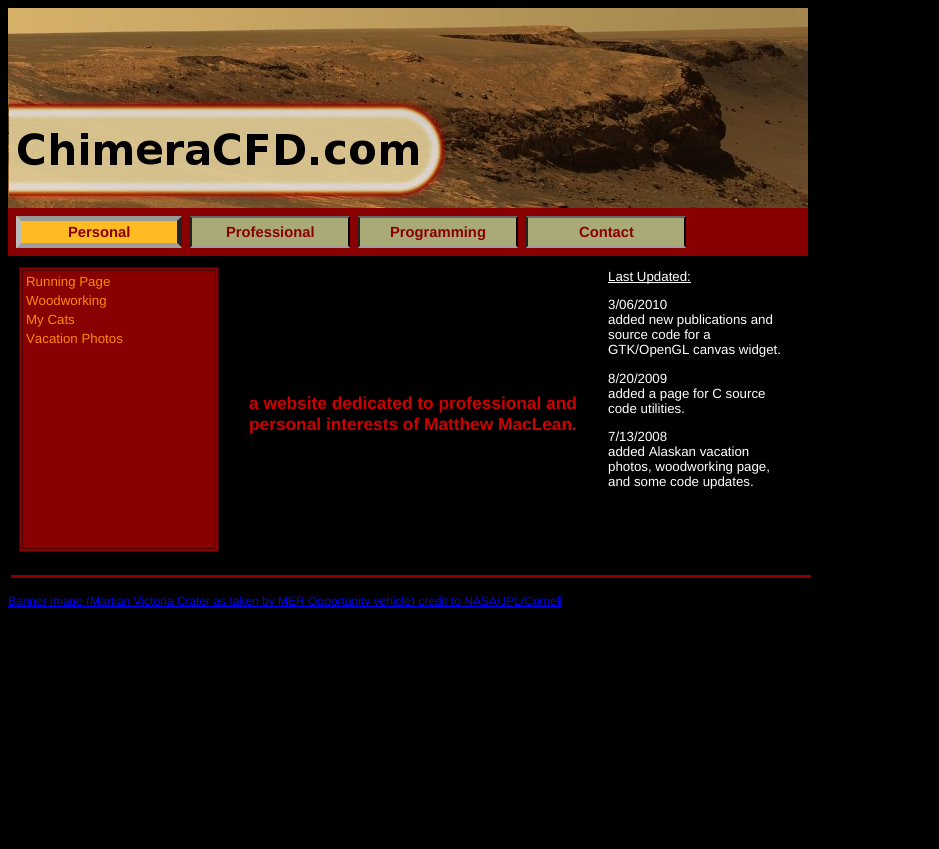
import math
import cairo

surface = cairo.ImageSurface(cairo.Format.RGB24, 939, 849)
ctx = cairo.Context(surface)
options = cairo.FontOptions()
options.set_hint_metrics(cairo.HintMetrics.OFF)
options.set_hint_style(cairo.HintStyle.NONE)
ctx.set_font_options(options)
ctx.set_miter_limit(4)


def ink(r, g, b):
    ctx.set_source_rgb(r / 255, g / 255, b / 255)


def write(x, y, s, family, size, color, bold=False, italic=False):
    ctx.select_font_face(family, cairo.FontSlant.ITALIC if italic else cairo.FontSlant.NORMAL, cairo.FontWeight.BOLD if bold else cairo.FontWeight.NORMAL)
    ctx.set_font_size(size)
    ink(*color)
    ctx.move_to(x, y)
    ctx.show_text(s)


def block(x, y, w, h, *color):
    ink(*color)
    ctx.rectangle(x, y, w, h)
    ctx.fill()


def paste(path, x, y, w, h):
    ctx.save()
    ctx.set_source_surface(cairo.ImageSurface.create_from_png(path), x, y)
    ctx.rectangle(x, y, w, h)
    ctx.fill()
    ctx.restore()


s1 = dict(family="Liberation Sans", size=14.75, color=(136, 0, 0), bold=True)
s2 = dict(family="Liberation Sans", size=13.3, color=(255, 136, 0))
s3 = dict(family="Liberation Sans", size=13.3, color=(255, 255, 255))
s4 = dict(family="Liberation Sans", size=17.3, color=(204, 0, 0), bold=True)
s5 = dict(family="Liberation Sans", size=12, color=(0, 0, 255))

ink(0, 0, 0)
ctx.paint()
paste("pic1.png", 8, 8, 800, 200)
paste("pic2.png", 9, 99, 436, 101)
block(8, 208, 800, 48, 136, 0, 0)
block(16, 216, 166, 32, 255, 187, 34)
ink(153, 153, 153)
ctx.new_path()
ctx.move_to(16, 216)
ctx.line_to(182, 216)
ctx.line_to(177, 221)
ctx.line_to(21, 221)
ctx.close_path()
ctx.fill()
ink(34, 34, 34)
ctx.new_path()
ctx.move_to(182, 216)
ctx.line_to(182, 248)
ctx.line_to(177, 243)
ctx.line_to(177, 221)
ctx.close_path()
ctx.fill()
ink(159, 159, 159)
ctx.new_path()
ctx.move_to(182, 248)
ctx.line_to(16, 248)
ctx.line_to(21, 243)
ctx.line_to(177, 243)
ctx.close_path()
ctx.fill()
ink(187, 187, 187)
ctx.new_path()
ctx.move_to(16, 248)
ctx.line_to(16, 216)
ctx.line_to(21, 221)
ctx.line_to(21, 243)
ctx.close_path()
ctx.fill()
write(68, 237, "Personal", **s1)
block(190, 216, 160, 32, 170, 170, 119)
ink(102, 102, 102)
ctx.new_path()
ctx.move_to(190, 216)
ctx.line_to(350, 216)
ctx.line_to(348, 218)
ctx.line_to(192, 218)
ctx.close_path()
ctx.fill()
ink(0, 0, 0)
ctx.new_path()
ctx.move_to(350, 216)
ctx.line_to(350, 248)
ctx.line_to(348, 246)
ctx.line_to(348, 218)
ctx.close_path()
ctx.fill()
ink(159, 159, 159)
ctx.new_path()
ctx.move_to(350, 248)
ctx.line_to(190, 248)
ctx.line_to(192, 246)
ctx.line_to(348, 246)
ctx.close_path()
ctx.fill()
ink(34, 34, 34)
ctx.new_path()
ctx.move_to(190, 248)
ctx.line_to(190, 216)
ctx.line_to(192, 218)
ctx.line_to(192, 246)
ctx.close_path()
ctx.fill()
write(226, 237, "Professional", **s1)
block(358, 216, 160, 32, 170, 170, 119)
ink(102, 102, 102)
ctx.new_path()
ctx.move_to(358, 216)
ctx.line_to(518, 216)
ctx.line_to(516, 218)
ctx.line_to(360, 218)
ctx.close_path()
ctx.fill()
ink(0, 0, 0)
ctx.new_path()
ctx.move_to(518, 216)
ctx.line_to(518, 248)
ctx.line_to(516, 246)
ctx.line_to(516, 218)
ctx.close_path()
ctx.fill()
ink(159, 159, 159)
ctx.new_path()
ctx.move_to(518, 248)
ctx.line_to(358, 248)
ctx.line_to(360, 246)
ctx.line_to(516, 246)
ctx.close_path()
ctx.fill()
ink(34, 34, 34)
ctx.new_path()
ctx.move_to(358, 248)
ctx.line_to(358, 216)
ctx.line_to(360, 218)
ctx.line_to(360, 246)
ctx.close_path()
ctx.fill()
write(390, 237, "Programming", **s1)
block(526, 216, 160, 32, 170, 170, 119)
ink(102, 102, 102)
ctx.new_path()
ctx.move_to(526, 216)
ctx.line_to(686, 216)
ctx.line_to(684, 218)
ctx.line_to(528, 218)
ctx.close_path()
ctx.fill()
ink(0, 0, 0)
ctx.new_path()
ctx.move_to(686, 216)
ctx.line_to(686, 248)
ctx.line_to(684, 246)
ctx.line_to(684, 218)
ctx.close_path()
ctx.fill()
ink(159, 159, 159)
ctx.new_path()
ctx.move_to(686, 248)
ctx.line_to(526, 248)
ctx.line_to(528, 246)
ctx.line_to(684, 246)
ctx.close_path()
ctx.fill()
ink(34, 34, 34)
ctx.new_path()
ctx.move_to(526, 248)
ctx.line_to(526, 216)
ctx.line_to(528, 218)
ctx.line_to(528, 246)
ctx.close_path()
ctx.fill()
write(579, 237, "Contact", **s1)
ctx.rectangle(19.5, 267.5, 199, 284)
ctx.fill_preserve()
ink(68, 0, 0)
ctx.set_line_width(1)
ctx.stroke()
ctx.rectangle(22.5, 270.5, 193, 278)
ctx.stroke()
write(26, 286, "Running Page", **s2)
write(26, 305, "Woodworking", **s2)
write(26, 324, "My Cats", **s2)
write(26, 343, "Vacation Photos", **s2)
block(608, 282, 83, 1, 255, 255, 255)
write(608, 281, "Last Updated:", **s3)
write(608, 309, "3/06/2010", **s3)
write(608, 324, "added new publications and", **s3)
write(608, 339, "source code for a", **s3)
write(608, 354, "GTK/OpenGL canvas widget.", **s3)
write(608, 383, "8/20/2009", **s3)
write(608, 398, "added a page for C source", **s3)
write(608, 413, "code utilities.", **s3)
write(608, 441, "7/13/2008", **s3)
write(608, 456, "added Alaskan vacation", **s3)
write(608, 471, "photos, woodworking page,", **s3)
write(608, 486, "and some code updates.", **s3)
write(249, 409, "a website dedicated to professional and", **s4)
write(249, 430, "personal interests of Matthew MacLean.", **s4)
block(11, 575, 800, 3, 136, 0, 0)
block(8, 606, 554, 1, 0, 0, 255)
write(8, 605, "Banner image (Martian Victoria Crater as taken by MER Opportunity vehicle) credit to NASA/JPL/Cornell", **s5)
surface.write_to_png("screenshot.png")
